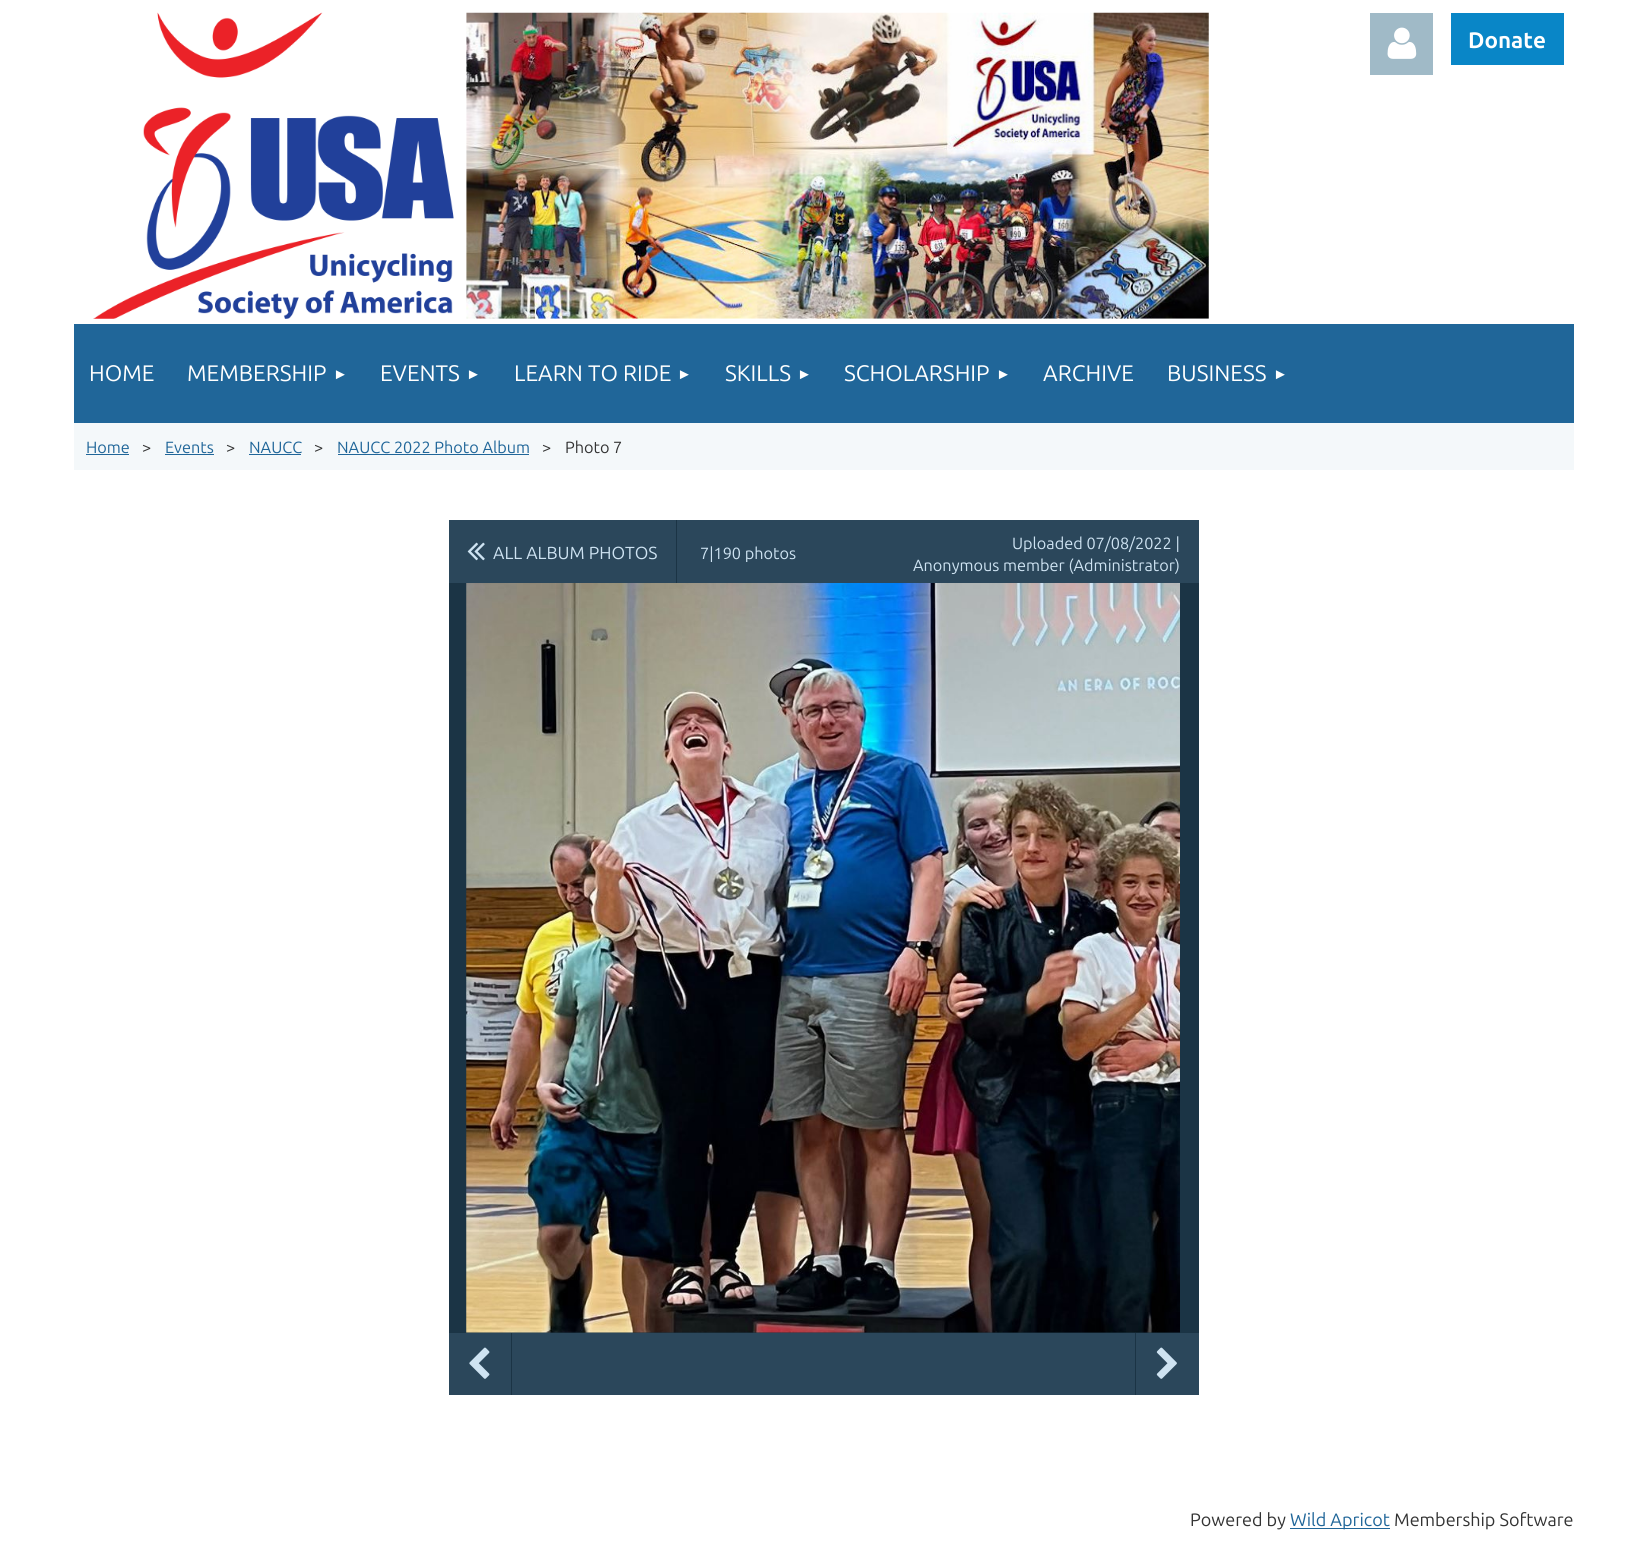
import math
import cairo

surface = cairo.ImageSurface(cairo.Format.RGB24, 1646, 1565)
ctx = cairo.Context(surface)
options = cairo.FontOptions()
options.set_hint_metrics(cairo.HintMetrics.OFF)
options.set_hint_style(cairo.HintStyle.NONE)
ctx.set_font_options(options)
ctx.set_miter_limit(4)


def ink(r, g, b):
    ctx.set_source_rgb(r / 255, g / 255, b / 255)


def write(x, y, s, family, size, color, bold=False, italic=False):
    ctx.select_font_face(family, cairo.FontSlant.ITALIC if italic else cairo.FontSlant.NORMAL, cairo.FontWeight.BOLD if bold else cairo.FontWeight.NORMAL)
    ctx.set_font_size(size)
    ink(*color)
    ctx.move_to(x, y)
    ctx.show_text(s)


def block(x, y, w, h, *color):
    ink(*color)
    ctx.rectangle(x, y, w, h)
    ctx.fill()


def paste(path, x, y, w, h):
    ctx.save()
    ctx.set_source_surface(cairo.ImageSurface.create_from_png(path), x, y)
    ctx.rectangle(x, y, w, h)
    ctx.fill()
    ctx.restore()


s1 = dict(family="Ubuntu", size=22.5, color=(255, 255, 255), bold=True)
s2 = dict(family="Ubuntu", size=22.5, color=(255, 255, 255))
s3 = dict(family="Liberation Sans", size=15, color=(255, 255, 255))
s4 = dict(family="Ubuntu", size=16.25, color=(32, 102, 153))
s5 = dict(family="Ubuntu", size=16.25, color=(51, 51, 51))
s6 = dict(family="Ubuntu", size=17.5, color=(206, 227, 242))
s7 = dict(family="Ubuntu", size=16.25, color=(206, 227, 242))
s8 = dict(family="Ubuntu", size=18, color=(51, 51, 51))
s9 = dict(family="Ubuntu", size=18, color=(32, 102, 153))

ink(255, 255, 255)
ctx.paint()
paste("pic1.png", 93, 12, 361, 307)
paste("pic2.png", 466, 12, 743, 307)
block(1370, 13, 63, 62, 160, 186, 199)
paste("pic3.png", 1387, 27, 30, 32)
block(1451, 13, 113, 52, 9, 134, 199)
write(1468, 48, "Donate", **s1)
block(74, 423, 1500, 47, 244, 248, 250)
block(74, 324, 1500, 99, 32, 102, 153)
write(89, 381, "HOME", **s2)
write(187, 381, "MEMBERSHIP", **s2)
write(333, 379, "►", **s3)
write(380, 381, "EVENTS", **s2)
write(466, 379, "►", **s3)
write(514, 381, "LEARN TO RIDE", **s2)
write(677, 379, "►", **s3)
write(725, 381, "SKILLS", **s2)
write(797, 379, "►", **s3)
write(844, 381, "SCHOLARSHIP", **s2)
write(996, 379, "►", **s3)
write(1043, 381, "ARCHIVE", **s2)
write(1167, 381, "BUSINESS", **s2)
write(1273, 379, "►", **s3)
write(86, 453, "Home", **s4)
block(86, 454, 43, 1, 32, 102, 153)
write(142, 453, ">", **s5)
write(165, 453, "Events", **s4)
block(165, 454, 49, 1, 32, 102, 153)
write(226, 453, ">", **s5)
write(249, 453, "NAUCC", **s4)
block(249, 454, 52, 1, 32, 102, 153)
write(314, 453, ">", **s5)
write(337, 453, "NAUCC 2022 Photo Album", **s4)
block(338, 454, 191, 1, 32, 102, 153)
write(542, 453, ">", **s5)
write(565, 453, "Photo 7", **s5)
block(449, 520, 750, 63, 43, 71, 91)
block(676, 520, 1, 63, 27, 52, 69)
paste("pic4.png", 467, 542, 18, 19)
write(493, 559, "ALL ALBUM PHOTOS", **s6)
write(700, 559, "7|190 photos", **s7)
write(1012, 549, "Uploaded 07/08/2022 |", **s7)
write(913, 571, "Anonymous member (Administrator)", **s7)
block(449, 583, 750, 750, 27, 52, 69)
paste("pic5.png", 466, 583, 714, 750)
block(449, 1333, 750, 62, 43, 71, 91)
paste("pic6.png", 469, 1347, 21, 32)
block(511, 1333, 1, 62, 27, 52, 69)
block(1135, 1333, 1, 62, 27, 52, 69)
paste("pic7.png", 1156, 1347, 21, 32)
write(1190, 1526, "Powered by", **s8)
block(1290, 1528, 100, 1, 32, 102, 153)
write(1290, 1526, "Wild Apricot", **s9)
write(1394, 1526, "Membership Software", **s8)
surface.write_to_png("screenshot.png")
